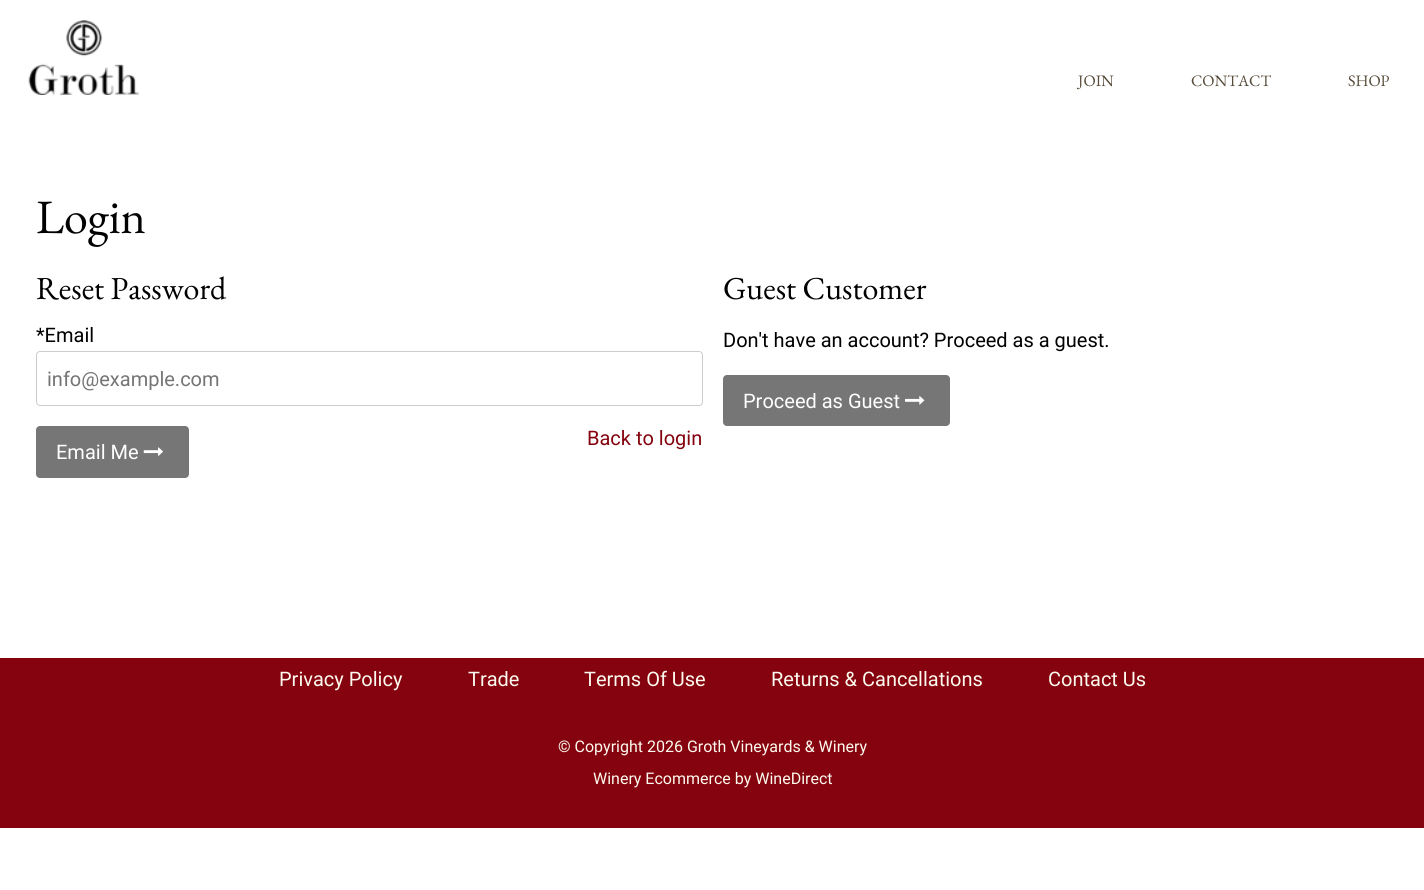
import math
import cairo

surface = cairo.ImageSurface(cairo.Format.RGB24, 1424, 890)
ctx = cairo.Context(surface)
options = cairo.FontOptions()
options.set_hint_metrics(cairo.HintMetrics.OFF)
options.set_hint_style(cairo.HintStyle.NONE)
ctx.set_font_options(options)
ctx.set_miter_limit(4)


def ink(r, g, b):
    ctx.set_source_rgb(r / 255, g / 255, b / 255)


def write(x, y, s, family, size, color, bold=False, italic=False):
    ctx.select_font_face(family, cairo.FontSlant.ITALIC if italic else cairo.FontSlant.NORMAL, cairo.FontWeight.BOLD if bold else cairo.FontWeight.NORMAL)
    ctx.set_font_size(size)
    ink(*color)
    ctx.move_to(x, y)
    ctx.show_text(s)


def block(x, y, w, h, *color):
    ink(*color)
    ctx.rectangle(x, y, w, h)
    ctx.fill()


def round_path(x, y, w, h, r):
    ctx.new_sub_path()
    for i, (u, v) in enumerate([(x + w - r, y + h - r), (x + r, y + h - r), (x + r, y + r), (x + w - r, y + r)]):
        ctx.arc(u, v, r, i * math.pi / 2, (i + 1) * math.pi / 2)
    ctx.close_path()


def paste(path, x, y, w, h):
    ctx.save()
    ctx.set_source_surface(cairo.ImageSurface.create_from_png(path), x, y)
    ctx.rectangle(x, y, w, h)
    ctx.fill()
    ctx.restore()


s1 = dict(family="EB Garamond", size=16, color=(86, 75, 57))
s2 = dict(family="EB Garamond", size=48, color=(0, 0, 0))
s3 = dict(family="EB Garamond", size=32, color=(0, 0, 0))
s4 = dict(family="Roboto", size=20, color=(0, 0, 0))
s5 = dict(family="Roboto", size=20, color=(117, 117, 117))
s6 = dict(family="Roboto", size=20, color=(133, 3, 14))
s7 = dict(family="Roboto", size=20, color=(255, 255, 255))
s8 = dict(family="Roboto", size=20, color=(252, 250, 239))
s9 = dict(family="Roboto", size=16, color=(252, 250, 239))

ink(255, 255, 255)
ctx.paint()
paste("pic1.png", 28, 20, 111, 75)
write(1078, 86, "JOIN", **s1)
write(1191, 86, "CONTACT", **s1)
write(1348, 86, "SHOP", **s1)
write(36, 233, "Login", **s2)
write(36, 299, "Reset Password", **s3)
write(36, 342, "*Email", **s4)
round_path(36.5, 351.5, 666, 54, 3.5)
ink(204, 204, 204)
ctx.set_line_width(1)
ctx.stroke()
write(47, 386, "info@example.com", **s5)
write(587, 445, "Back to login", **s6)
ink(118, 118, 118)
round_path(36, 426, 153, 52, 4)
ctx.fill()
write(56, 459, "Email Me", **s7)
paste("pic2.png", 143, 447, 20, 9)
write(723, 299, "Guest Customer", **s3)
write(723, 347, "Don't have an account? Proceed as a guest.", **s4)
ink(118, 118, 118)
round_path(723, 375, 227, 51, 4)
ctx.fill()
write(743, 408, "Proceed as Guest", **s7)
paste("pic3.png", 905, 396, 20, 9)
block(0, 658, 1424, 170, 133, 3, 14)
write(279, 686, "Privacy Policy", **s8)
write(468, 686, "Trade", **s8)
write(584, 686, "Terms Of Use", **s8)
write(771, 686, "Returns & Cancellations", **s8)
write(1048, 686, "Contact Us", **s8)
write(558, 752, "© Copyright 2026 Groth Vineyards & Winery", **s9)
write(593, 784, "Winery Ecommerce by WineDirect", **s9)
surface.write_to_png("screenshot.png")
